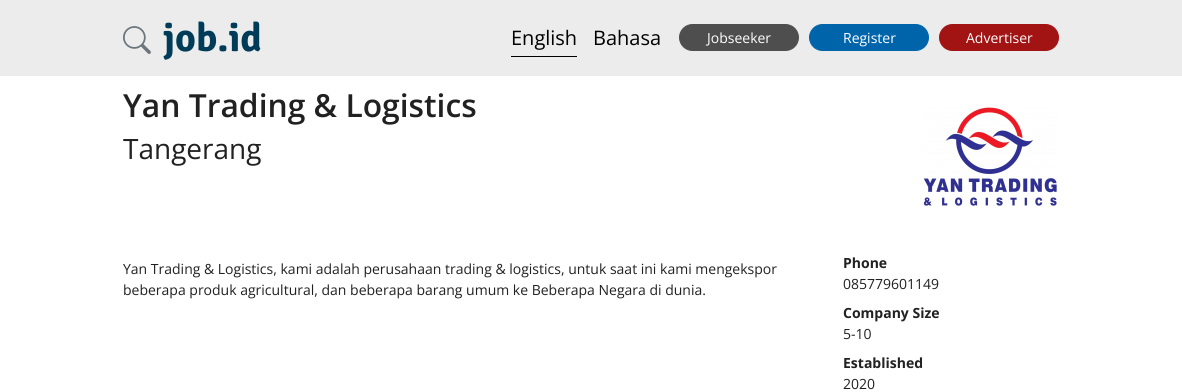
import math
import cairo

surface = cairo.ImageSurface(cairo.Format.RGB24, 1182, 392)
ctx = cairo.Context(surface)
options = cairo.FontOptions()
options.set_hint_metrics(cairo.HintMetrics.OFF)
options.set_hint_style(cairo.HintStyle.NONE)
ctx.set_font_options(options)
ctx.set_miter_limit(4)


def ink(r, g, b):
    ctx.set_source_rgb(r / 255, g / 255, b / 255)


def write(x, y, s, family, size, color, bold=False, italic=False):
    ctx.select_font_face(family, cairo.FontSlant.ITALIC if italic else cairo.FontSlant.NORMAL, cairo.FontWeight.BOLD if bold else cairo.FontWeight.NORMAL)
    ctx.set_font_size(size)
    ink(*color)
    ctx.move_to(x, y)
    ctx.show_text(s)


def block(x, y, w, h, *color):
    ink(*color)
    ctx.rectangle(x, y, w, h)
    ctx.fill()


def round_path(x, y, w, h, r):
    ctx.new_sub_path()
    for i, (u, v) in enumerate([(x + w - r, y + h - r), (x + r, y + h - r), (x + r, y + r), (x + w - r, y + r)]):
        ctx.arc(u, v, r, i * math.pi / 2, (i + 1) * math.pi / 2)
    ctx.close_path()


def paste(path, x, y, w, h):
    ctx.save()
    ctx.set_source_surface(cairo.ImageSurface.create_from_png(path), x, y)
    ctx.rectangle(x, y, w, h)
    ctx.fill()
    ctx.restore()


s1 = dict(family="Signika Negative Light", size=40, color=(0, 60, 88))
s2 = dict(family="Open Sans", size=20, color=(0, 0, 0))
s3 = dict(family="Open Sans", size=14, color=(255, 255, 255))
s4 = dict(family="Open Sans SemiBold", size=31.8, color=(33, 33, 33))
s5 = dict(family="Open Sans", size=28, color=(33, 33, 33))
s6 = dict(family="Open Sans", size=14, color=(33, 33, 33))
s7 = dict(family="Open Sans", size=14, color=(33, 33, 33), bold=True)

ink(255, 255, 255)
ctx.paint()
block(0, 0, 1182, 76, 236, 236, 236)
paste("pic1.png", 123, 26, 28, 28)
write(163, 51, "job.id", **s1)
write(511, 45, "English", **s2)
block(511, 56, 66, 1, 0, 0, 0)
write(593, 45, "Bahasa", **s2)
ink(78, 78, 78)
round_path(679.5, 24.5, 119, 26, 13)
ctx.fill_preserve()
ctx.set_line_width(1)
ctx.stroke()
write(707, 43, "Jobseeker", **s3)
ink(0, 100, 171)
round_path(809.5, 24.5, 119, 26, 13)
ctx.fill_preserve()
ctx.stroke()
write(843, 43, "Register", **s3)
ink(162, 19, 19)
round_path(939.5, 24.5, 119, 26, 13)
ctx.fill_preserve()
ctx.stroke()
write(966, 43, "Advertiser", **s3)
write(123, 117, "Yan Trading & Logistics", **s4)
write(123, 159, "Tangerang", **s5)
paste("pic2.png", 923, 107, 135, 100)
write(123, 274, "Yan Trading & Logistics, kami adalah perusahaan trading & logistics, untuk saat ini kami mengekspor", **s6)
write(123, 295, "beberapa produk agricultural, dan beberapa barang umum ke Beberapa Negara di dunia.", **s6)
write(843, 268, "Phone", **s7)
write(843, 289, "085779601149", **s6)
write(843, 318, "Company Size", **s7)
write(843, 339, "5-10", **s6)
write(843, 368, "Established", **s7)
write(843, 389, "2020", **s6)
surface.write_to_png("screenshot.png")
